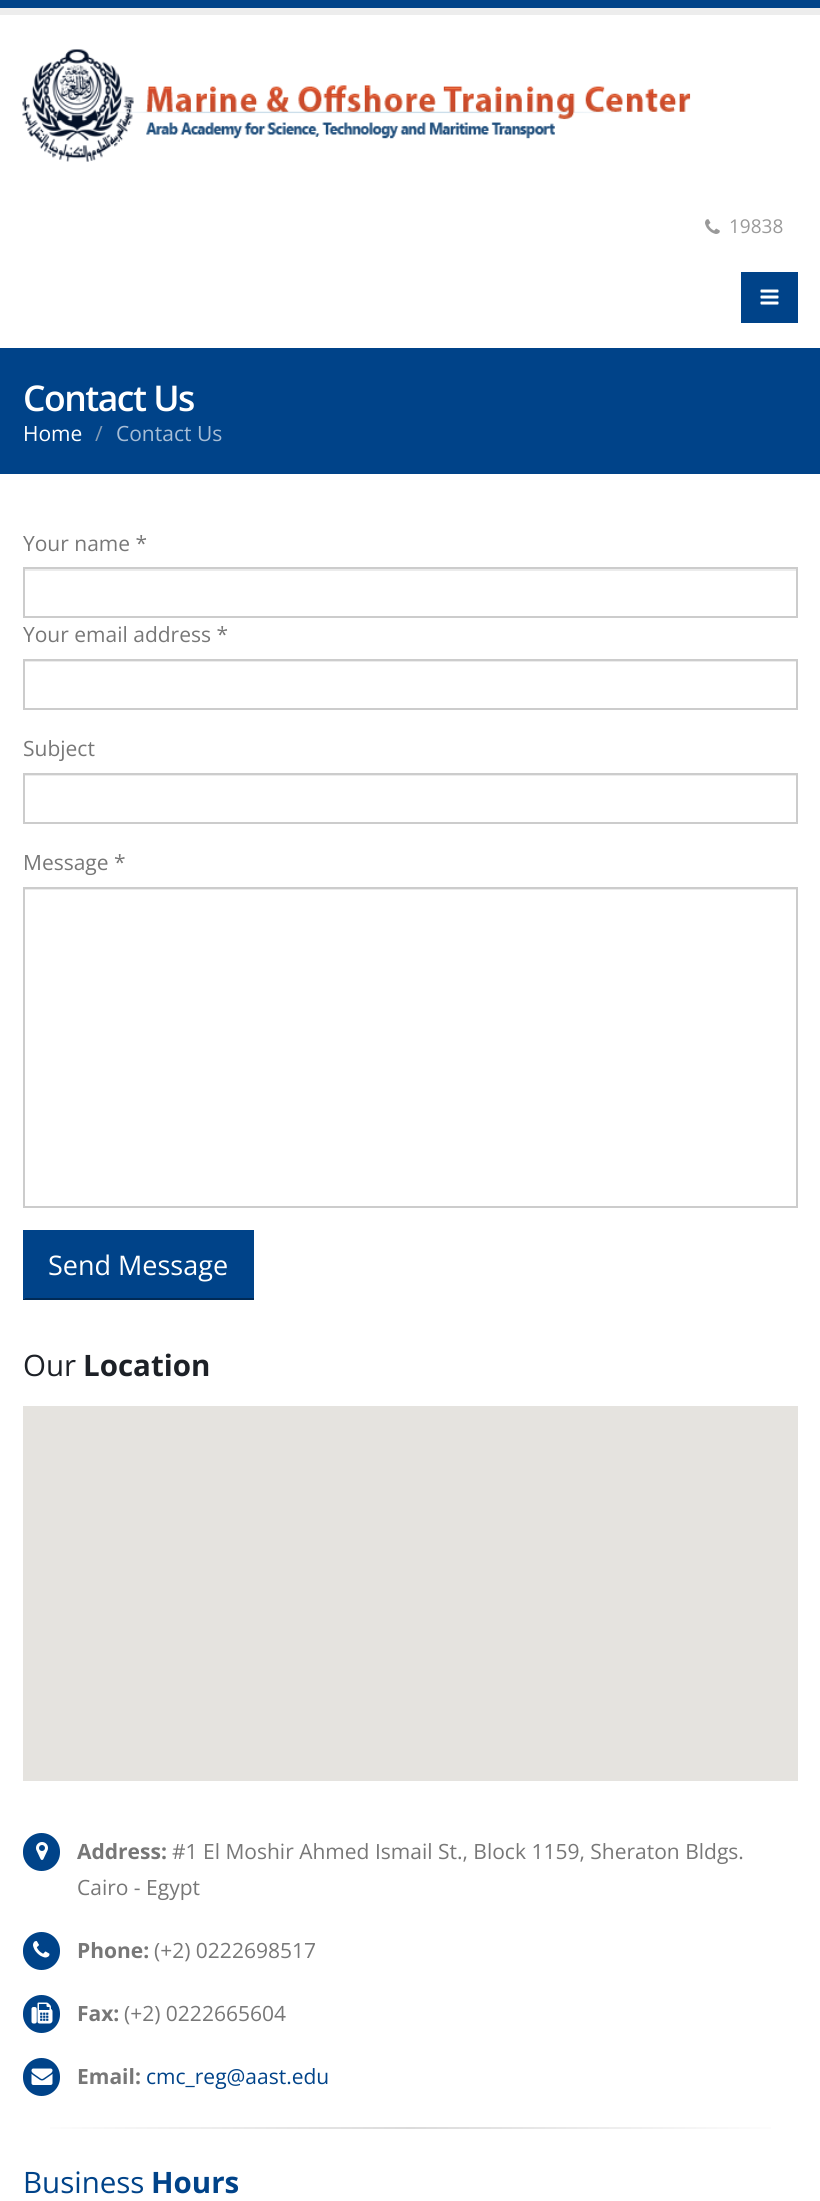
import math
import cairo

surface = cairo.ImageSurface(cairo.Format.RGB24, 820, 2201)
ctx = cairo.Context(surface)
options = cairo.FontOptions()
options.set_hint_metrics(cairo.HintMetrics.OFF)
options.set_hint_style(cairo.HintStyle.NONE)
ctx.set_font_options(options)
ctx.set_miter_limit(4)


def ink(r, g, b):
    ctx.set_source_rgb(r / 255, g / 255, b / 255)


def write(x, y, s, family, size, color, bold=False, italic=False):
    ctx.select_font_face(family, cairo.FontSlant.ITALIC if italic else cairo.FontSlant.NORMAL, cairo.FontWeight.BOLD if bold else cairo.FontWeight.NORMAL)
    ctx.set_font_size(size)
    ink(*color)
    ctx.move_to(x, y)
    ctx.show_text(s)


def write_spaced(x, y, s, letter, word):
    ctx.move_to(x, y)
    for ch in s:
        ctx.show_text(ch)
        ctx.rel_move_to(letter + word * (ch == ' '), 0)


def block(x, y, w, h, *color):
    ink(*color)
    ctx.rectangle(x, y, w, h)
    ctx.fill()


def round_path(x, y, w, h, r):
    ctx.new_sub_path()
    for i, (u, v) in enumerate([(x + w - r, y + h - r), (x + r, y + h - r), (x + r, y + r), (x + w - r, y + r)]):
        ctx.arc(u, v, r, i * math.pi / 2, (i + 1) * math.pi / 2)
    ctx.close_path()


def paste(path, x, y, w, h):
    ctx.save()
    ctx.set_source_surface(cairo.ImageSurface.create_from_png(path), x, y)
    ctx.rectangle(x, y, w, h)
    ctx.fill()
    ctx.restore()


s1 = dict(family="Open Sans", size=19, color=(153, 153, 153))
s2 = dict(family="Open Sans", size=21, color=(255, 255, 255))
s3 = dict(family="Open Sans", size=21, color=(133, 156, 181))
s4 = dict(family="Open Sans", size=21, color=(166, 189, 214))
s5 = dict(family="Open Sans", size=21, color=(119, 119, 119))
s6 = dict(family="Open Sans", size=27, color=(255, 255, 255))
s7 = dict(family="Open Sans", size=29.5, color=(29, 33, 39))
s8 = dict(family="Open Sans", size=29.5, color=(29, 33, 39), bold=True)
s9 = dict(family="Open Sans", size=21, color=(119, 119, 119), bold=True)
s10 = dict(family="Open Sans", size=21, color=(0, 67, 137))
s11 = dict(family="Open Sans", size=29.5, color=(0, 67, 137))
s12 = dict(family="Open Sans", size=29.5, color=(0, 67, 137), bold=True)

ink(255, 255, 255)
ctx.paint()
block(0, 0, 820, 8, 0, 67, 137)
block(0, 8, 820, 7, 237, 237, 237)
paste("pic1.png", 22, 49, 669, 113)
paste("pic2.png", 705, 219, 15, 15)
write(729, 233, "19838", **s1)
block(741, 272, 57, 51, 0, 67, 137)
paste("pic3.png", 760, 289, 19, 16)
block(0, 348, 820, 126, 0, 67, 137)
ctx.select_font_face("Open Sans SemiBold")
ctx.set_font_size(35.5)
ink(255, 255, 255)
write_spaced(23, 411, "Contact Us", -1.5, 0)
write(23, 441, "Home", **s2)
write(95, 441, "/", **s3)
write(116, 441, "Contact Us", **s4)
write(23, 551, "Your name *", **s5)
block(24, 569, 773, 2, 236, 236, 236)
ctx.rectangle(24, 568, 773, 49)
ink(204, 204, 204)
ctx.stroke()
write(23, 642, "Your email address *", **s5)
block(24, 661, 773, 1, 236, 236, 236)
ctx.rectangle(24, 660, 773, 49)
ink(204, 204, 204)
ctx.stroke()
write(23, 756, "Subject", **s5)
block(24, 775, 773, 1, 236, 236, 236)
ctx.rectangle(24, 774, 773, 49)
ink(204, 204, 204)
ctx.stroke()
write(23, 870, "Message *", **s5)
block(24, 889, 773, 1, 236, 236, 236)
ctx.rectangle(24, 888, 773, 319)
ink(204, 204, 204)
ctx.stroke()
block(25, 1230, 229, 68, 0, 67, 137)
block(23, 1298, 231, 2, 0, 42, 86)
block(23, 1230, 2, 69, 0, 67, 137)
write(48, 1275, "Send Message", **s6)
write(23, 1376, "Our", **s7)
write(83, 1376, "Location", **s8)
block(23, 1406, 775, 375, 229, 227, 223)
ink(0, 67, 137)
round_path(23, 1833, 37, 38, 18.5)
ctx.fill()
paste("pic4.png", 36, 1842, 12, 18)
write(77, 1859, "Address:", **s9)
write(172, 1859, "#1 El Moshir Ahmed Ismail St., Block 1159, Sheraton Bldgs.", **s5)
write(77, 1895, "Cairo - Egypt", **s5)
ink(0, 67, 137)
round_path(23, 1932, 37, 38, 18.5)
ctx.fill()
paste("pic5.png", 33, 1941, 17, 17)
write(77, 1958, "Phone:", **s9)
write(154, 1958, "(+2) 0222698517", **s5)
ink(0, 67, 137)
round_path(23, 1995, 37, 38, 18.5)
ctx.fill()
paste("pic6.png", 31, 2002, 22, 22)
write(77, 2021, "Fax:", **s9)
write(124, 2021, "(+2) 0222665604", **s5)
ink(0, 67, 137)
round_path(23, 2058, 37, 38, 18.5)
ctx.fill()
paste("pic7.png", 31, 2068, 22, 17)
write(77, 2084, "Email:", **s9)
write(146, 2084, "cmc_reg@aast.edu", **s10)
gradient = cairo.LinearGradient(23, 2128, 798, 2128)
gradient.add_color_stop_rgba(0, 1, 1, 1, 1)
gradient.add_color_stop_rgba(0.5, 0.859, 0.859, 0.859, 1)
gradient.add_color_stop_rgba(1, 1, 1, 1, 1)
ctx.set_source(gradient)
ctx.rectangle(50, 2127, 721, 2)
ctx.fill()
write(23, 2193, "Business", **s11)
write(151, 2193, "Hours", **s12)
surface.write_to_png("screenshot.png")
